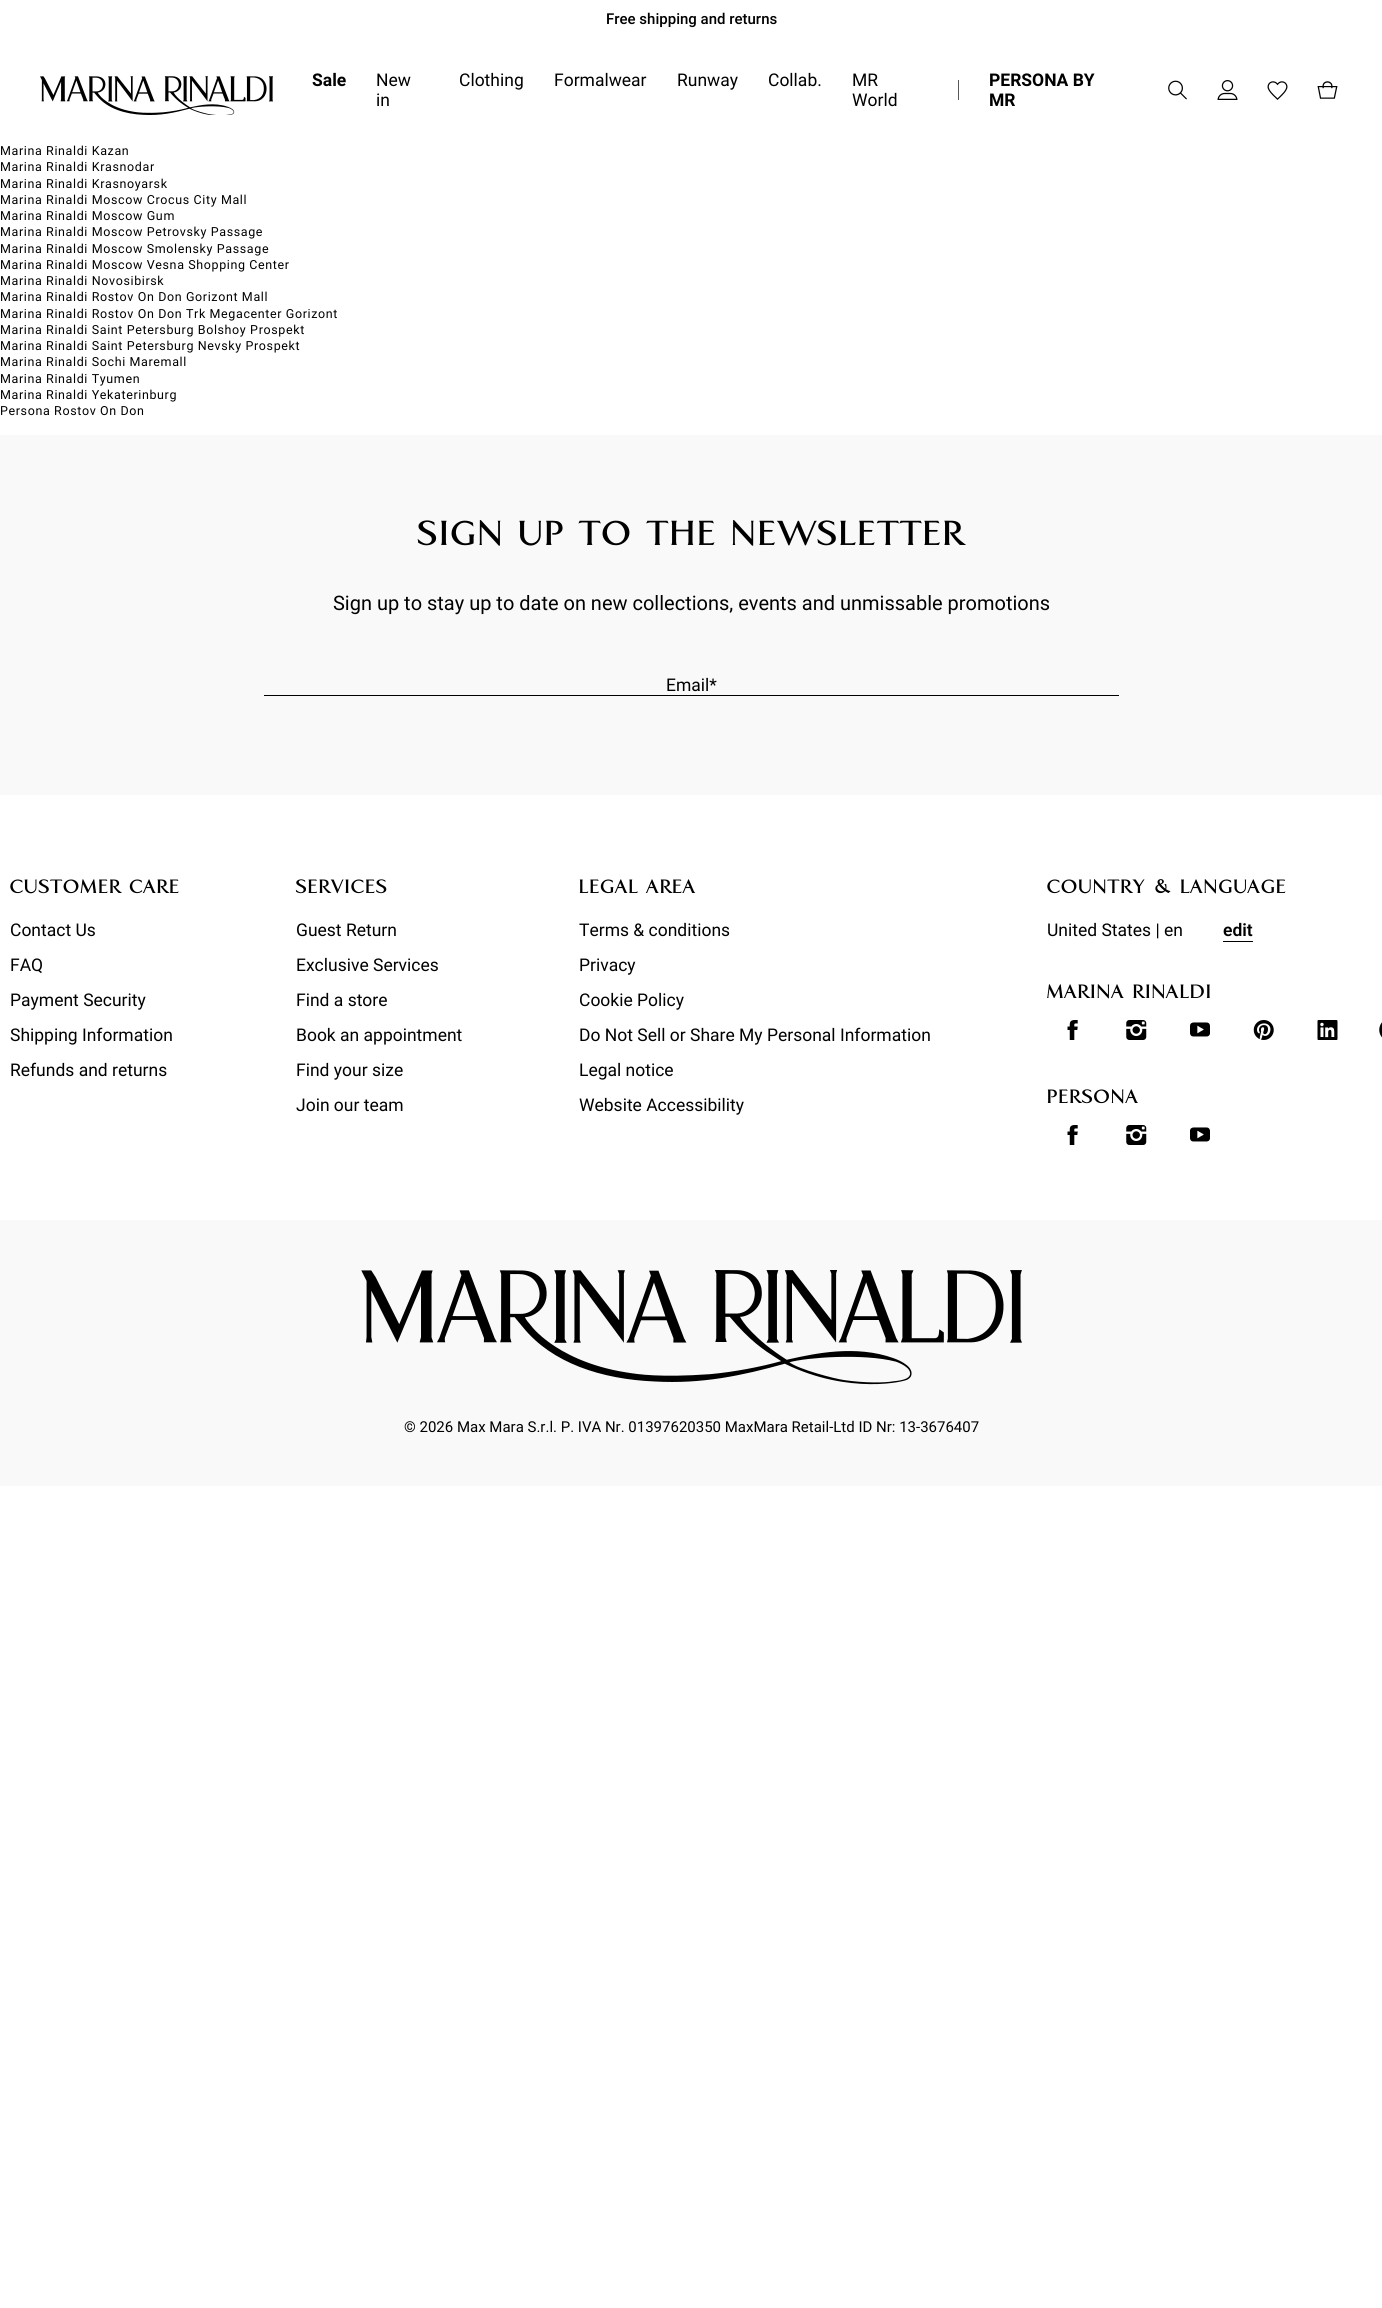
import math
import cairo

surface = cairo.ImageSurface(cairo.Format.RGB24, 1382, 2308)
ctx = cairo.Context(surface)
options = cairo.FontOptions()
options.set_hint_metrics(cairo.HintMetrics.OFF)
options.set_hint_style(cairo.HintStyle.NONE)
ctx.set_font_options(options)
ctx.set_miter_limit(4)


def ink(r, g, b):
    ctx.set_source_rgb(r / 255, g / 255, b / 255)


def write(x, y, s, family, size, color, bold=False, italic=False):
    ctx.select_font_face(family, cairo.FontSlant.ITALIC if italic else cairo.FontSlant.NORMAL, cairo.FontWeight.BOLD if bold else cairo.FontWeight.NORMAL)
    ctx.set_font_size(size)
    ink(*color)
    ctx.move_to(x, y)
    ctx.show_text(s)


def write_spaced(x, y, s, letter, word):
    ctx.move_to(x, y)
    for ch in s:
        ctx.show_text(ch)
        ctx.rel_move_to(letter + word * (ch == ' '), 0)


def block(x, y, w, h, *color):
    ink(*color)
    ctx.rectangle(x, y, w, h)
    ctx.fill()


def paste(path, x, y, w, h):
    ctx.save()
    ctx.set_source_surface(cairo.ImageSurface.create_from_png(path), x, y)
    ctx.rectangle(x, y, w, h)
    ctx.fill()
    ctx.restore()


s1 = dict(family="Roboto Medium", size=15, color=(0, 0, 0))
s2 = dict(family="Roboto", size=17.5, color=(0, 0, 0), bold=True)
s3 = dict(family="Roboto", size=17.5, color=(0, 0, 0))
s4 = dict(family="Roboto", size=20, color=(0, 0, 0))
s5 = dict(family="Roboto SemiBold", size=17.5, color=(0, 0, 0))
s6 = dict(family="Roboto", size=15, color=(0, 0, 0))

ink(255, 255, 255)
ctx.paint()
write(606, 24, "Free shipping and returns", **s1)
paste("pic1.png", 40, 76, 233, 39)
write(312, 86, "Sale", **s2)
write(376, 86, "New", **s3)
write(376, 106, "in", **s3)
write(459, 86, "Clothing", **s3)
write(554, 86, "Formalwear", **s3)
write(677, 86, "Runway", **s3)
write(768, 86, "Collab.", **s3)
write(852, 86, "MR", **s3)
write(852, 106, "World", **s3)
block(958, 80, 1, 20, 89, 89, 89)
write(989, 86, "PERSONA BY", **s2)
write(989, 106, "MR", **s2)
paste("pic2.png", 1168, 80, 19, 20)
paste("pic3.png", 1217, 80, 21, 20)
paste("pic4.png", 1267, 81, 21, 19)
paste("pic5.png", 1317, 81, 21, 18)
ctx.select_font_face("Roboto")
ctx.set_font_size(12.5)
write_spaced(0, 155, "Marina Rinaldi Kazan", 0.62, 0)
write_spaced(0, 171, "Marina Rinaldi Krasnodar", 0.62, 0)
write_spaced(0, 188, "Marina Rinaldi Krasnoyarsk", 0.62, 0)
write_spaced(0, 204, "Marina Rinaldi Moscow Crocus City Mall", 0.62, 0)
write_spaced(0, 220, "Marina Rinaldi Moscow Gum", 0.62, 0)
write_spaced(0, 236, "Marina Rinaldi Moscow Petrovsky Passage", 0.62, 0)
write_spaced(0, 253, "Marina Rinaldi Moscow Smolensky Passage", 0.62, 0)
write_spaced(0, 269, "Marina Rinaldi Moscow Vesna Shopping Center", 0.62, 0)
write_spaced(0, 285, "Marina Rinaldi Novosibirsk", 0.62, 0)
write_spaced(0, 301, "Marina Rinaldi Rostov On Don Gorizont Mall", 0.62, 0)
write_spaced(0, 318, "Marina Rinaldi Rostov On Don Trk Megacenter Gorizont", 0.62, 0)
write_spaced(0, 334, "Marina Rinaldi Saint Petersburg Bolshoy Prospekt", 0.62, 0)
write_spaced(0, 350, "Marina Rinaldi Saint Petersburg Nevsky Prospekt", 0.62, 0)
write_spaced(0, 366, "Marina Rinaldi Sochi Maremall", 0.62, 0)
write_spaced(0, 383, "Marina Rinaldi Tyumen", 0.62, 0)
write_spaced(0, 399, "Marina Rinaldi Yekaterinburg", 0.62, 0)
write_spaced(0, 415, "Persona Rostov On Don", 0.62, 0)
block(0, 435, 1382, 360, 249, 249, 249)
ctx.select_font_face("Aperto", cairo.FontSlant.NORMAL, cairo.FontWeight.BOLD)
ctx.set_font_size(45)
ink(0, 0, 0)
write_spaced(418, 545, "SIGN UP TO THE NEWSLETTER", 1.8, 0)
write(333, 610, "Sign up to stay up to date on new collections, events and unmissable promotions", **s4)
block(264, 695, 855, 1, 0, 0, 0)
write(666, 691, "Email*", **s3)
ctx.select_font_face("Aperto", cairo.FontSlant.NORMAL, cairo.FontWeight.BOLD)
ctx.set_font_size(25)
write_spaced(10, 893, "CUSTOMER CARE", 1, 0)
write(10, 936, "Contact Us", **s3)
write(10, 971, "FAQ", **s3)
write(10, 1006, "Payment Security", **s3)
write(10, 1041, "Shipping Information", **s3)
write(10, 1076, "Refunds and returns", **s3)
ctx.select_font_face("Aperto", cairo.FontSlant.NORMAL, cairo.FontWeight.BOLD)
ctx.set_font_size(25)
write_spaced(296, 893, "SERVICES", 1, 0)
write(296, 936, "Guest Return", **s3)
write(296, 971, "Exclusive Services", **s3)
write(296, 1006, "Find a store", **s3)
write(296, 1041, "Book an appointment", **s3)
write(296, 1076, "Find your size", **s3)
write(296, 1111, "Join our team", **s3)
ctx.select_font_face("Aperto", cairo.FontSlant.NORMAL, cairo.FontWeight.BOLD)
ctx.set_font_size(25)
write_spaced(579, 893, "LEGAL AREA", 1, 0)
write(579, 936, "Terms & conditions", **s3)
write(579, 971, "Privacy", **s3)
write(579, 1006, "Cookie Policy", **s3)
write(579, 1041, "Do Not Sell or Share My Personal Information", **s3)
write(579, 1076, "Legal notice", **s3)
write(579, 1111, "Website Accessibility", **s3)
ctx.select_font_face("Aperto", cairo.FontSlant.NORMAL, cairo.FontWeight.BOLD)
ctx.set_font_size(25)
write_spaced(1047, 893, "COUNTRY & LANGUAGE", 1, 0)
write(1047, 936, "United States | en", **s3)
write(1223, 936, "edit", **s5)
block(1223, 941, 30, 1, 0, 0, 0)
ctx.select_font_face("Aperto", cairo.FontSlant.NORMAL, cairo.FontWeight.BOLD)
ctx.set_font_size(25)
write_spaced(1047, 998, "MARINA RINALDI", 1, 0)
paste("pic6.png", 1067, 1020, 11, 20)
paste("pic7.png", 1126, 1020, 21, 20)
paste("pic8.png", 1190, 1022, 20, 15)
paste("pic9.png", 1253, 1020, 21, 20)
paste("pic10.png", 1317, 1020, 21, 20)
paste("pic11.png", 1379, 1022, 3, 16)
write_spaced(1047, 1103, "PERSONA", 1, 0)
paste("pic6.png", 1067, 1125, 11, 20)
paste("pic7.png", 1126, 1125, 21, 20)
paste("pic8.png", 1190, 1127, 20, 15)
block(0, 1220, 1382, 266, 249, 249, 249)
paste("pic12.png", 361, 1270, 661, 115)
write(404, 1432, "© 2026 Max Mara S.r.l. P. IVA Nr. 01397620350 MaxMara Retail-Ltd ID Nr: 13-3676407", **s6)
surface.write_to_png("screenshot.png")
